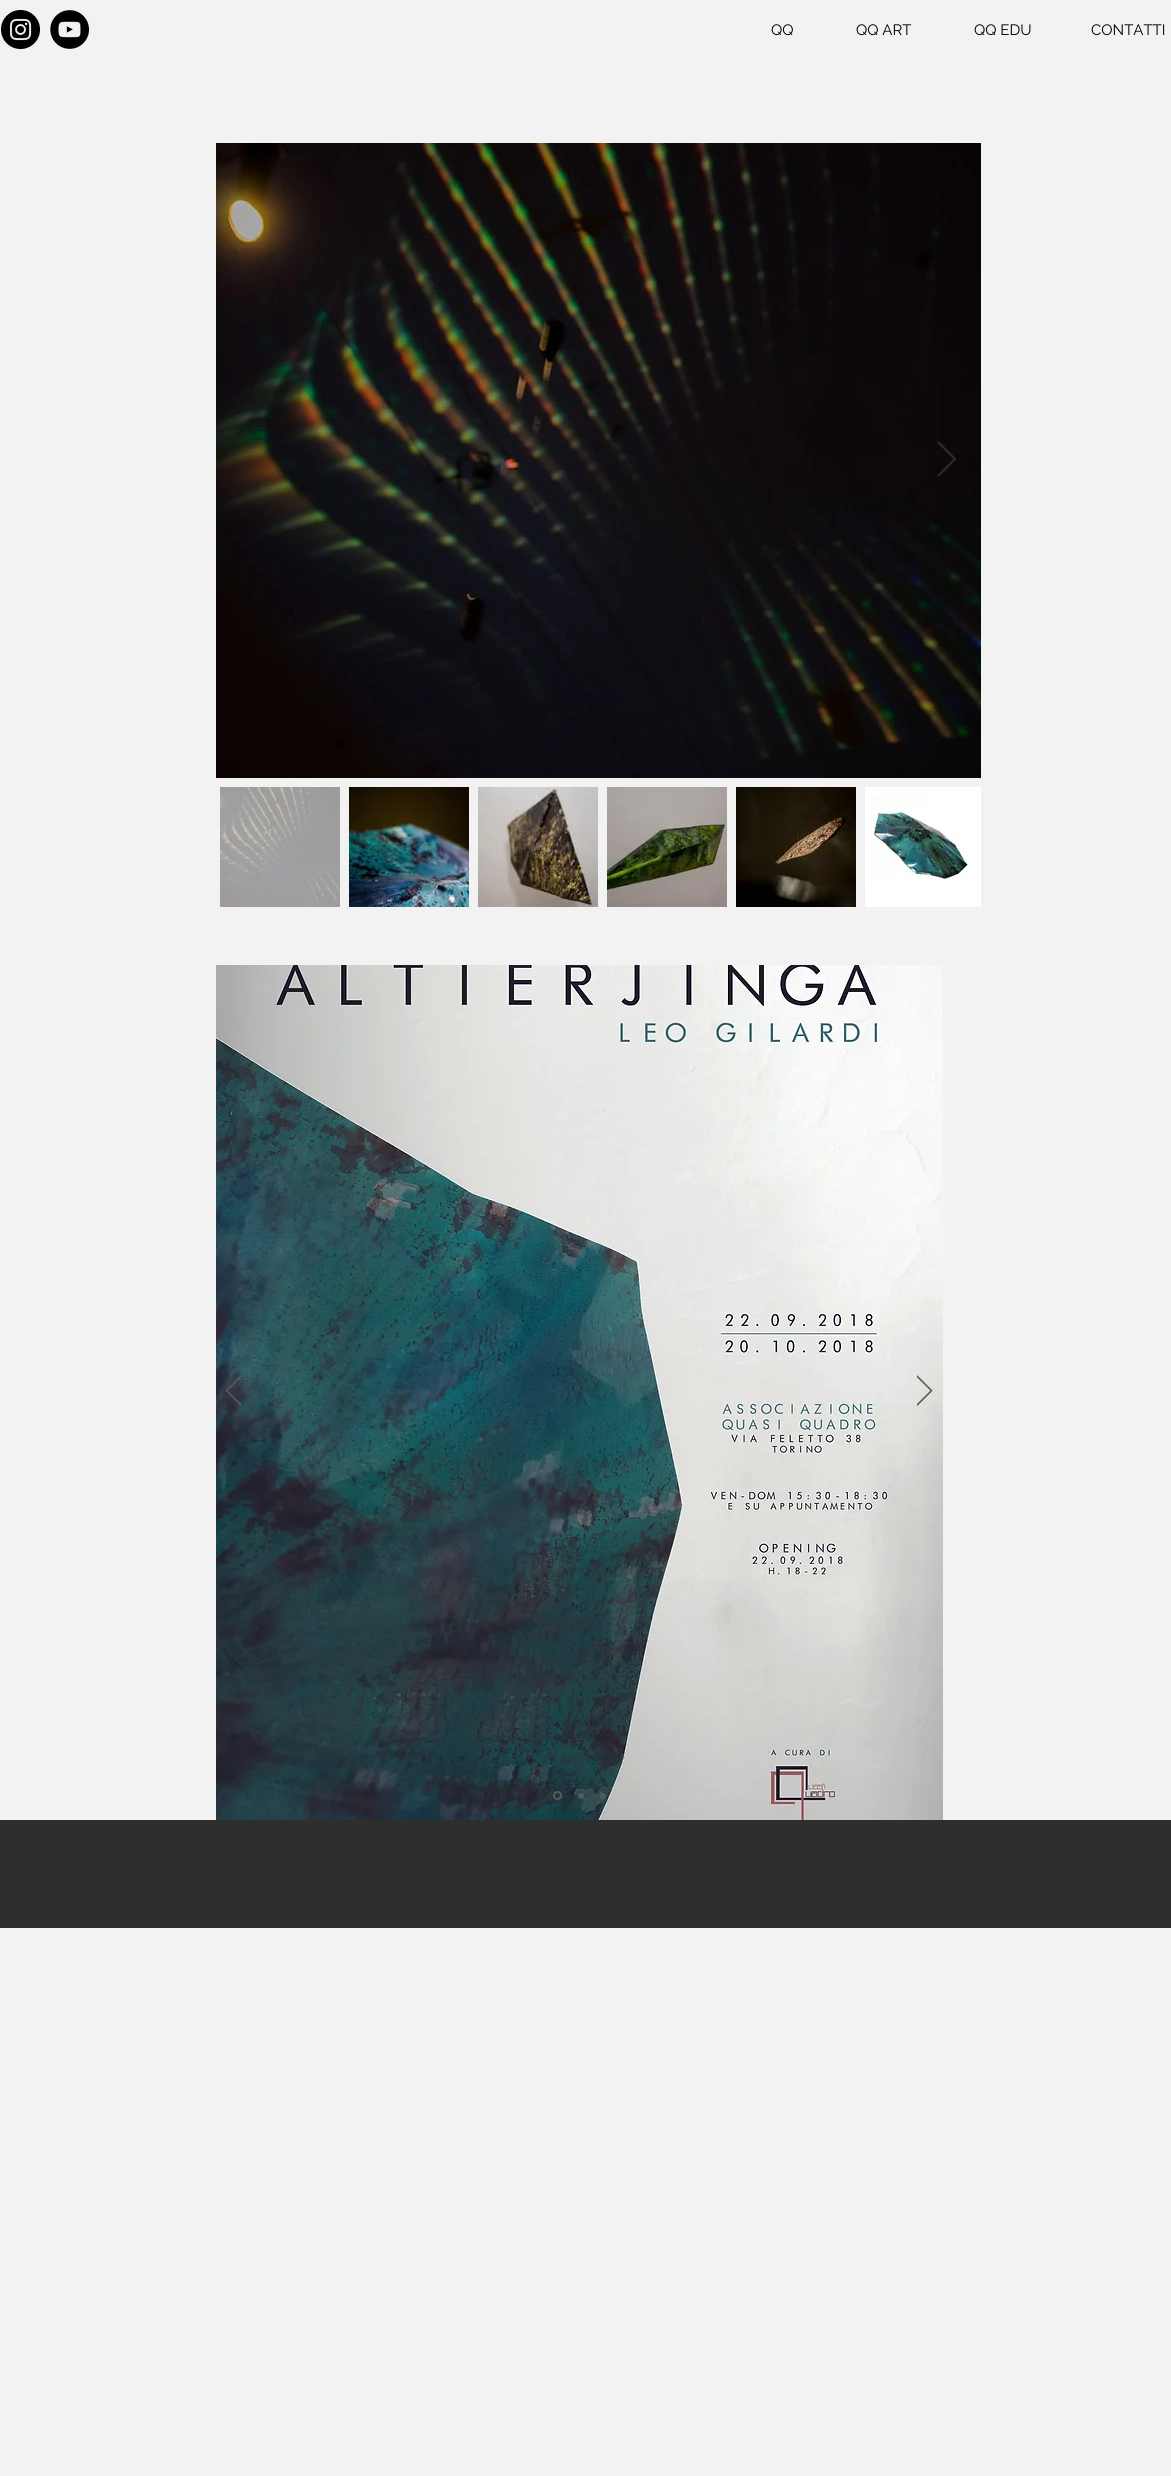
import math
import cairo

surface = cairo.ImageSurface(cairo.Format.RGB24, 1171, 2476)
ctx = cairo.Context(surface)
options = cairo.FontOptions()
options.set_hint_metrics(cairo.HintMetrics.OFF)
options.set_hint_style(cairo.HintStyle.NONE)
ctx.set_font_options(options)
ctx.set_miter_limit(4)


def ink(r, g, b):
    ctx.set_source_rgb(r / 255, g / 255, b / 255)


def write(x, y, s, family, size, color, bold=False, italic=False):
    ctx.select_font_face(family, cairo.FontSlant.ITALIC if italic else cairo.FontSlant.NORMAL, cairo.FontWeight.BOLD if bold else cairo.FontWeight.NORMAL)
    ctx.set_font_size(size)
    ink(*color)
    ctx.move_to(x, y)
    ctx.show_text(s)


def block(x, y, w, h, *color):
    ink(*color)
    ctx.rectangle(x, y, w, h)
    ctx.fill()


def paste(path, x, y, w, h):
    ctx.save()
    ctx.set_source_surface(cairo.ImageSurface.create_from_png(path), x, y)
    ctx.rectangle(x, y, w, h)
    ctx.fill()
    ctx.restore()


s1 = dict(family="Raleway", size=15, color=(0, 0, 0))

ink(242, 242, 242)
ctx.paint()
paste("pic1.png", 1, 10, 39, 39)
paste("pic2.png", 50, 10, 39, 39)
write(771, 35, "QQ", **s1)
write(856, 35, "QQ ART", **s1)
write(974, 35, "QQ EDU", **s1)
write(1091, 35, "CONTATTI", **s1)
paste("pic3.png", 216, 143, 765, 635)
ink(44, 42, 42)
ctx.new_path()
ctx.move_to(937, 442.5)
ctx.line_to(938.5, 441)
ctx.line_to(956.5, 459)
ctx.line_to(938.5, 477)
ctx.line_to(937, 475.5)
ctx.line_to(953.5, 459)
ctx.close_path()
ctx.fill()
paste("pic4.png", 220, 787, 120, 120)
paste("pic5.png", 349, 787, 120, 120)
paste("pic6.png", 478, 787, 120, 120)
paste("pic7.png", 607, 787, 120, 120)
paste("pic8.png", 736, 787, 120, 120)
block(865, 787, 116, 120, 255, 255, 255)
paste("pic9.png", 871, 795, 102, 86)
paste("pic10.png", 216, 965, 727, 855)
paste("pic11.png", 226, 1375, 15, 31)
paste("pic12.png", 917, 1375, 16, 31)
ctx.arc(557.5, 1795.5, 3.5, 0, 2 * math.pi)
ink(89, 88, 88)
ctx.stroke()
ctx.arc(581, 1796, 3, 0, 2 * math.pi)
ctx.fill()
ctx.arc(603, 1796, 3, 0, 2 * math.pi)
ctx.fill()
block(0, 1820, 1171, 108, 47, 46, 46)
surface.write_to_png("screenshot.png")
